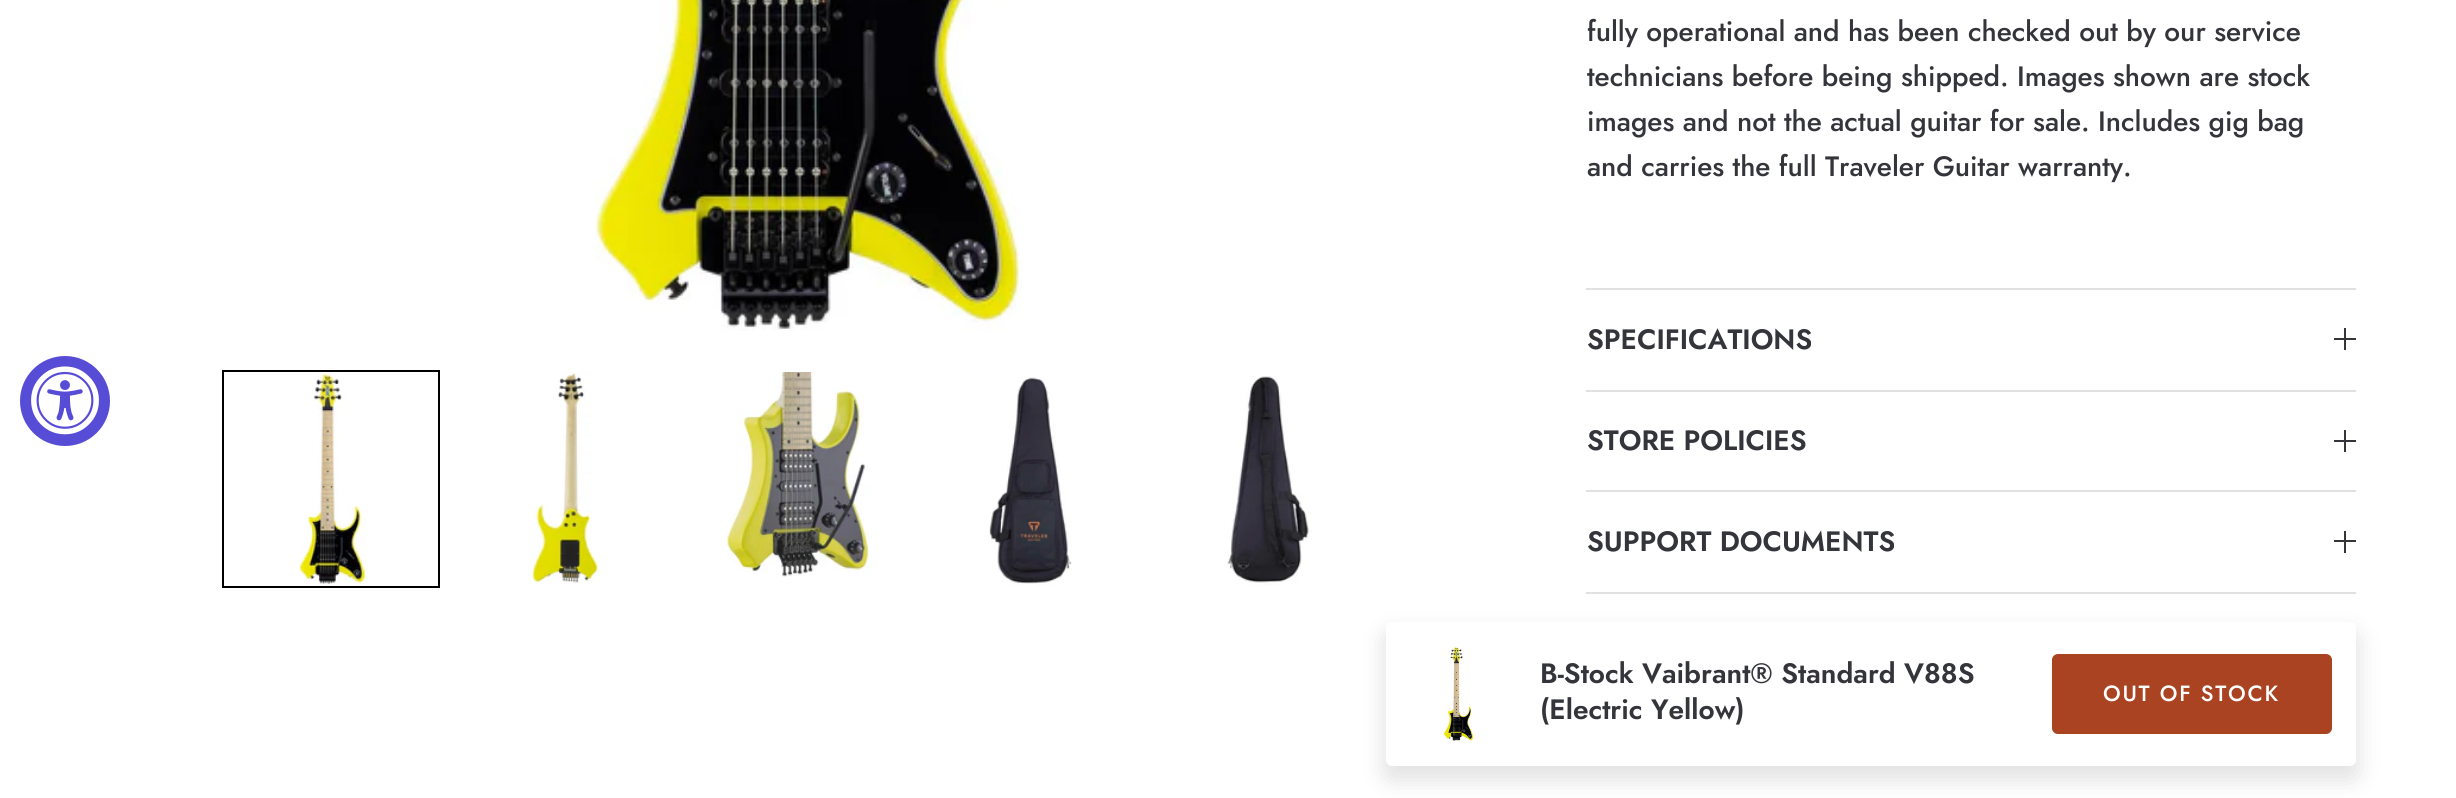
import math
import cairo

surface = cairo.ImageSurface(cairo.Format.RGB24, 2456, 798)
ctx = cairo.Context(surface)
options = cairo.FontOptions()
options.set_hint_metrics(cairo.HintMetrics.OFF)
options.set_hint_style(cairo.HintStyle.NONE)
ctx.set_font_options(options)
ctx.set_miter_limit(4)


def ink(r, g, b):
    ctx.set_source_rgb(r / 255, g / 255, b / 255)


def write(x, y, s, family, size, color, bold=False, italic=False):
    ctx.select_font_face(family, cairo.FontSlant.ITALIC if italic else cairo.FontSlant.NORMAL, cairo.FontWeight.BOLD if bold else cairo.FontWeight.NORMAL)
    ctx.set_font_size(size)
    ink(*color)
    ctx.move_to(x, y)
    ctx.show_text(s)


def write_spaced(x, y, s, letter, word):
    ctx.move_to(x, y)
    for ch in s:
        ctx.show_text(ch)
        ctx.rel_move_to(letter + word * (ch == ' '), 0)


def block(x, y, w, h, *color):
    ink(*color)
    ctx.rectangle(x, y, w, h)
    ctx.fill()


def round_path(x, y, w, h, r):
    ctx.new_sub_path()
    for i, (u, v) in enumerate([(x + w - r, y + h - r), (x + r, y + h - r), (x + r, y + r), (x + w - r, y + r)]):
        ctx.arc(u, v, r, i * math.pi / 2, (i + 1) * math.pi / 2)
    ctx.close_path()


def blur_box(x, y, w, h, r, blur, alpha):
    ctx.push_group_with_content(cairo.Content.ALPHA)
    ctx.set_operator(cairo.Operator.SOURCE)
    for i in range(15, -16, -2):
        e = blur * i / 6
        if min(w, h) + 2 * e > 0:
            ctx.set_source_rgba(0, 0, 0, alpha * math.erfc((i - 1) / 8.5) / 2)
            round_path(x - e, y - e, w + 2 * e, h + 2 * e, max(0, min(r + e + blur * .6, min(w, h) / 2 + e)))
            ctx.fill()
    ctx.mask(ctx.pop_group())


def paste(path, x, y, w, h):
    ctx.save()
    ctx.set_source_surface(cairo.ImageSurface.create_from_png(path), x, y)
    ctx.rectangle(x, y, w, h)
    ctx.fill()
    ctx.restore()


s1 = dict(family="Jost Medium", size=28, color=(52, 53, 58))
s2 = dict(family="Jost SemiBold", size=28, color=(52, 53, 58))

ink(255, 255, 255)
ctx.paint()
ink(87, 76, 213)
ctx.arc(65, 401, 45, 0, 2 * math.pi)
ctx.fill()
paste("pic1.png", 31, 366, 68, 69)
paste("pic2.png", 595, 0, 427, 331)
ctx.rectangle(223, 371, 216, 216)
ink(0, 0, 0)
ctx.stroke()
paste("pic3.png", 299, 372, 68, 212)
paste("pic4.png", 527, 372, 73, 211)
paste("pic5.png", 726, 372, 147, 205)
paste("pic6.png", 988, 377, 84, 209)
paste("pic7.png", 1227, 376, 85, 210)
write(1587, 41, "fully operational and has been checked out by our service", **s1)
write(1587, 86, "technicians before being shipped. Images shown are stock", **s1)
write(1587, 131, "images and not the actual guitar for sale. Includes gig bag", **s1)
write(1587, 176, "and carries the full Traveler Guitar warranty.", **s1)
block(1586, 288, 770, 2, 225, 225, 225)
block(1586, 390, 770, 2, 225, 225, 225)
write(1587, 349, "SPECIFICATIONS", **s2)
block(2344, 328, 2, 22, 52, 53, 58)
block(2334, 338, 22, 2, 52, 53, 58)
block(1586, 490, 770, 2, 225, 225, 225)
write(1587, 450, "STORE POLICIES", **s2)
block(2344, 430, 2, 22, 52, 53, 58)
block(2334, 440, 22, 2, 52, 53, 58)
block(1586, 592, 770, 2, 225, 225, 225)
write(1587, 551, "SUPPORT DOCUMENTS", **s2)
block(2344, 531, 2, 22, 52, 53, 58)
block(2334, 540, 22, 2, 52, 53, 58)
ink(0, 0, 0)
blur_box(1384, 632, 974, 148, 8, 12, 0.12)
ink(255, 255, 255)
round_path(1386, 622, 970, 144, 6)
ctx.fill()
paste("pic8.png", 1444, 647, 30, 94)
write(1540, 683, "B-Stock Vaibrant® Standard V88S", **s2)
write(1540, 719, "(Electric Yellow)", **s2)
ink(169, 67, 34)
round_path(2053, 655, 278, 78, 5)
ctx.fill_preserve()
ctx.stroke()
ctx.select_font_face("Jost Medium")
ctx.set_font_size(22)
ink(255, 255, 255)
write_spaced(2103, 701, "OUT OF STOCK", 1.75, 0)
surface.write_to_png("screenshot.png")
